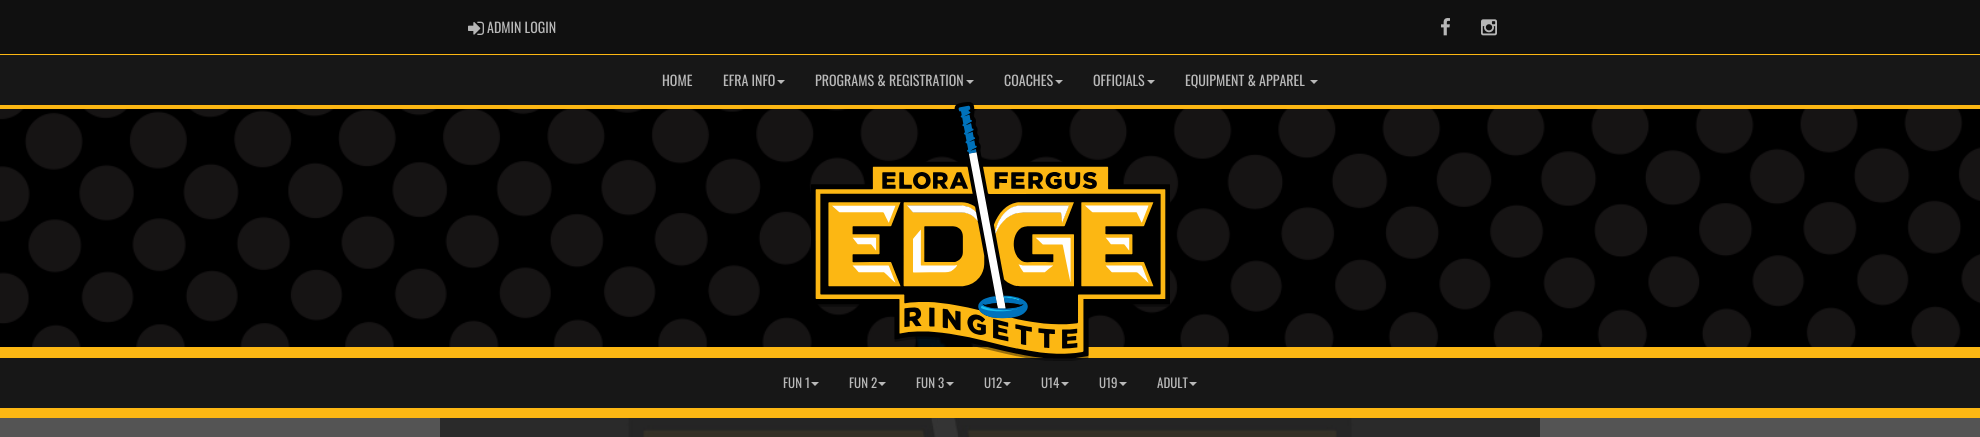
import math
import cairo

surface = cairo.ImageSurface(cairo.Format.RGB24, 1980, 437)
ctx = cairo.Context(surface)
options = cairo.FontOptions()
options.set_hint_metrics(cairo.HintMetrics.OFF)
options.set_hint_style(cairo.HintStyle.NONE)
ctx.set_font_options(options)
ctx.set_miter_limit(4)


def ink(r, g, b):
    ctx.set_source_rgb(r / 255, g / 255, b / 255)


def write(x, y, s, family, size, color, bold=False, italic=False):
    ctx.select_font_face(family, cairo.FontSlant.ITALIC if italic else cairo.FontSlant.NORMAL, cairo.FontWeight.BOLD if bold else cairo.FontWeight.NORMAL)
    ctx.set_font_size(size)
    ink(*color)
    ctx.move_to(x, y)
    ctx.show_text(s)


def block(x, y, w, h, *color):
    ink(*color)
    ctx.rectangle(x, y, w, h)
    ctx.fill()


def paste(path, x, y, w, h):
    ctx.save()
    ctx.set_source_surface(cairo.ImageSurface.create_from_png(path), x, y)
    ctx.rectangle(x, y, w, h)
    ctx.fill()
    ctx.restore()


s1 = dict(family="Oswald", size=14, color=(185, 185, 185))
s2 = dict(family="Oswald", size=13, color=(185, 185, 185))

ink(255, 255, 255)
ctx.paint()
block(0, 54, 1980, 1, 252, 183, 19)
block(0, 0, 1980, 54, 16, 16, 16)
paste("pic1.png", 468, 21, 16, 14)
write(487, 33, "ADMIN LOGIN", **s1)
paste("pic2.png", 1441, 18, 9, 18)
paste("pic3.png", 1481, 19, 16, 17)
block(0, 55, 1980, 50, 23, 23, 23)
block(0, 105, 1980, 4, 252, 183, 19)
write(662, 86, "HOME", **s1)
write(723, 86, "EFRA INFO", **s1)
ctx.new_path()
ctx.move_to(777, 80)
ctx.line_to(785, 80)
ctx.line_to(781, 84)
ctx.close_path()
ctx.fill()
write(815, 86, "PROGRAMS & REGISTRATION", **s1)
ctx.new_path()
ctx.move_to(966, 80)
ctx.line_to(974, 80)
ctx.line_to(970, 84)
ctx.close_path()
ctx.fill()
write(1004, 86, "COACHES", **s1)
ctx.new_path()
ctx.move_to(1055, 80)
ctx.line_to(1063, 80)
ctx.line_to(1059, 84)
ctx.close_path()
ctx.fill()
write(1093, 86, "OFFICIALS", **s1)
ctx.new_path()
ctx.move_to(1147, 80)
ctx.line_to(1155, 80)
ctx.line_to(1151, 84)
ctx.close_path()
ctx.fill()
write(1185, 86, "EQUIPMENT & APPAREL", **s1)
ctx.new_path()
ctx.move_to(1310, 80)
ctx.line_to(1318, 80)
ctx.line_to(1314, 84)
ctx.close_path()
ctx.fill()
paste("pic5.png", 0, 109, 1980, 328)
paste("pic6.png", 0, 109, 1980, 238)
block(0, 347, 1980, 11, 252, 183, 19)
block(0, 358, 1980, 50, 23, 23, 23)
paste("pic4.png", 811, 102, 359, 259)
write(783, 388, "FUN 1", **s2)
ctx.new_path()
ctx.move_to(811, 382)
ctx.line_to(819, 382)
ctx.line_to(815, 386)
ctx.close_path()
ctx.fill()
write(849, 388, "FUN 2", **s2)
ctx.new_path()
ctx.move_to(878, 382)
ctx.line_to(886, 382)
ctx.line_to(882, 386)
ctx.close_path()
ctx.fill()
write(916, 388, "FUN 3", **s2)
ctx.new_path()
ctx.move_to(946, 382)
ctx.line_to(954, 382)
ctx.line_to(950, 386)
ctx.close_path()
ctx.fill()
write(984, 388, "U12", **s2)
ctx.new_path()
ctx.move_to(1003, 382)
ctx.line_to(1011, 382)
ctx.line_to(1007, 386)
ctx.close_path()
ctx.fill()
write(1041, 388, "U14", **s2)
ctx.new_path()
ctx.move_to(1061, 382)
ctx.line_to(1069, 382)
ctx.line_to(1065, 386)
ctx.close_path()
ctx.fill()
write(1099, 388, "U19", **s2)
ctx.new_path()
ctx.move_to(1119, 382)
ctx.line_to(1127, 382)
ctx.line_to(1123, 386)
ctx.close_path()
ctx.fill()
write(1157, 388, "ADULT", **s2)
ctx.new_path()
ctx.move_to(1189, 382)
ctx.line_to(1197, 382)
ctx.line_to(1193, 386)
ctx.close_path()
ctx.fill()
block(0, 408, 1980, 10, 252, 183, 19)
ctx.set_source_rgba(0, 0, 0, 0.5)
ctx.rectangle(440, 418, 1100, 19)
ctx.fill()
surface.write_to_png("screenshot.png")
